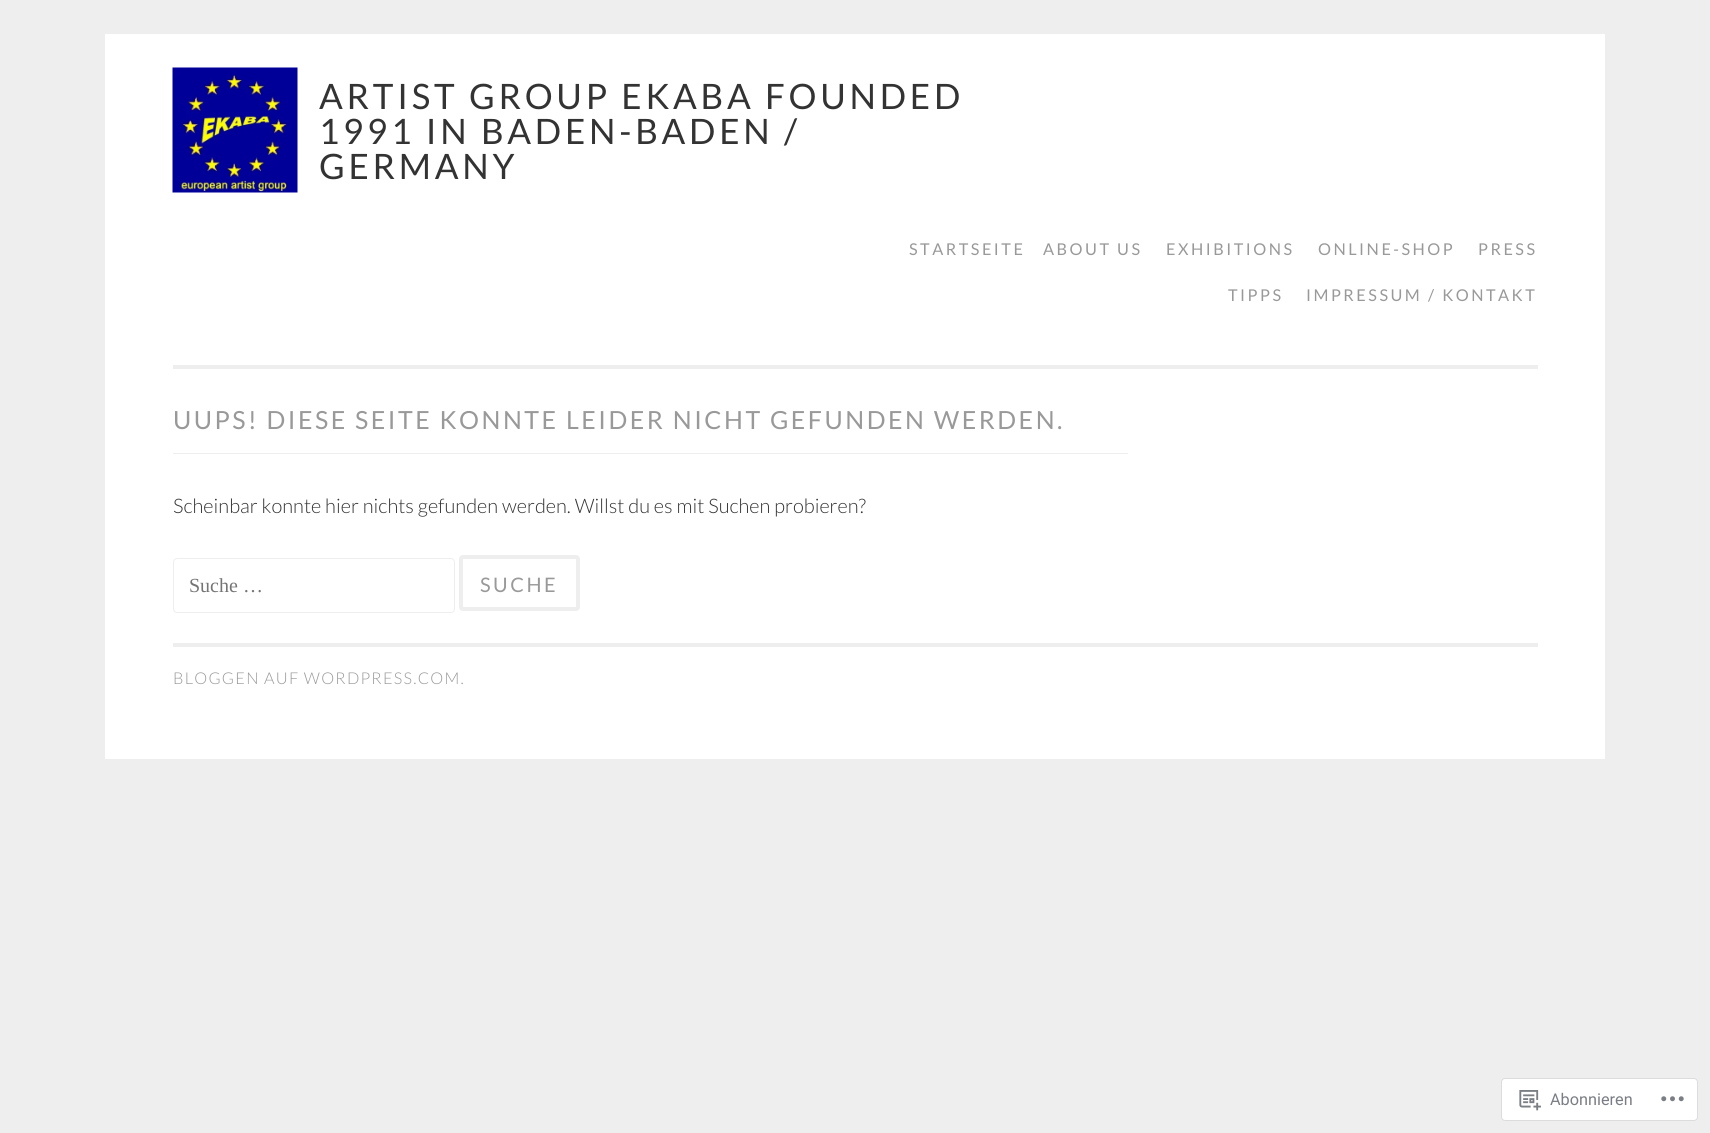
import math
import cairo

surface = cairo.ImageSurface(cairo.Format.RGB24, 1710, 1133)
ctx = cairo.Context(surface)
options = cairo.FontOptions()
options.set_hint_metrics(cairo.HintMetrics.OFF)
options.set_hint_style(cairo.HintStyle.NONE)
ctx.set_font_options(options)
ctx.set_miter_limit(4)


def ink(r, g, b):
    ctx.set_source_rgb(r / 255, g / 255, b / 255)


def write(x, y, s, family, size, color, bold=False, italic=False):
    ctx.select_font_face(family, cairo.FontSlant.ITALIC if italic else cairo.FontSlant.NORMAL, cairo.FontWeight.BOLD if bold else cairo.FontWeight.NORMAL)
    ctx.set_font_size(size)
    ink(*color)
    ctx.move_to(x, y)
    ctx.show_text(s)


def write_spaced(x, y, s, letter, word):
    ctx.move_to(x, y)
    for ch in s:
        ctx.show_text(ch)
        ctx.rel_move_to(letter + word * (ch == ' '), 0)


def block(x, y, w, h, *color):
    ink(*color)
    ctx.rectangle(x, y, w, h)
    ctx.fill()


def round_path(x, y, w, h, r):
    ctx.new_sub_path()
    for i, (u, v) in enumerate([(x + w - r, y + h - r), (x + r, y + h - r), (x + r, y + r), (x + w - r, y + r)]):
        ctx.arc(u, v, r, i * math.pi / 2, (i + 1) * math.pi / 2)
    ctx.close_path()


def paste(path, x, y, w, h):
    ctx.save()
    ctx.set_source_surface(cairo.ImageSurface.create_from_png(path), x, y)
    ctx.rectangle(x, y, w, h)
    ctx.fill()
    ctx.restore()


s1 = dict(family="Lato Light", size=20, color=(51, 51, 51))
s2 = dict(family="Liberation Serif", size=20, color=(117, 117, 117))
s3 = dict(family="Roboto", size=16.25, color=(122, 126, 132))

ink(238, 238, 238)
ctx.paint()
block(105, 34, 1500, 725, 255, 255, 255)
block(173, 365, 1365, 4, 238, 238, 238)
paste("pic1.png", 172, 67, 126, 126)
ctx.select_font_face("Lato")
ctx.set_font_size(35)
ink(51, 51, 51)
write_spaced(319, 109, "ARTIST GROUP EKABA FOUNDED", 3.75, 0)
write_spaced(319, 144, "1991 IN BADEN-BADEN /", 3.75, 0)
write_spaced(319, 179, "GERMANY", 3.75, 0)
ctx.set_font_size(16.25)
ink(153, 153, 153)
write_spaced(909, 255, "STARTSEITE", 2.5, 0)
write_spaced(1043, 255, "ABOUT US", 2.5, 0)
write_spaced(1166, 255, "EXHIBITIONS", 2.5, 0)
write_spaced(1318, 255, "ONLINE-SHOP", 2.5, 0)
write_spaced(1478, 255, "PRESS", 2.5, 0)
write_spaced(1228, 301, "TIPPS", 2.5, 0)
write_spaced(1306, 301, "IMPRESSUM / KONTAKT", 2.5, 0)
block(173, 453, 955, 1, 238, 238, 238)
ctx.set_font_size(25)
ink(153, 153, 153)
write_spaced(173, 429, "UUPS! DIESE SEITE KONNTE LEIDER NICHT GEFUNDEN WERDEN.", 2.5, 0)
write(173, 513, "Scheinbar konnte hier nichts gefunden werden. Willst du es mit Suchen probieren?", **s1)
round_path(173.5, 558.5, 281, 54, 3.5)
ink(238, 238, 238)
ctx.set_line_width(1)
ctx.stroke()
write(189, 592, "Suche …", **s2)
round_path(461, 557, 117, 52, 2)
ink(238, 238, 238)
ctx.set_line_width(4)
ctx.stroke()
ctx.select_font_face("Lato")
ink(153, 153, 153)
write_spaced(480, 592, "SUCHE", 2.5, 0)
block(173, 643, 1365, 4, 238, 238, 238)
ctx.select_font_face("Lato Light")
ctx.set_font_size(16.25)
ink(153, 153, 153)
write_spaced(173, 684, "BLOGGEN AUF WORDPRESS.COM.", 1.25, 0)
ink(255, 255, 255)
round_path(1501.5, 1078.5, 196, 42, 3.5)
ctx.fill_preserve()
ink(220, 220, 222)
ctx.set_line_width(1)
ctx.stroke()
paste("pic2.png", 1519, 1090, 22, 21)
write(1550, 1105, "Abonnieren", **s3)
paste("pic3.png", 1661, 1096, 23, 6)
surface.write_to_png("screenshot.png")
